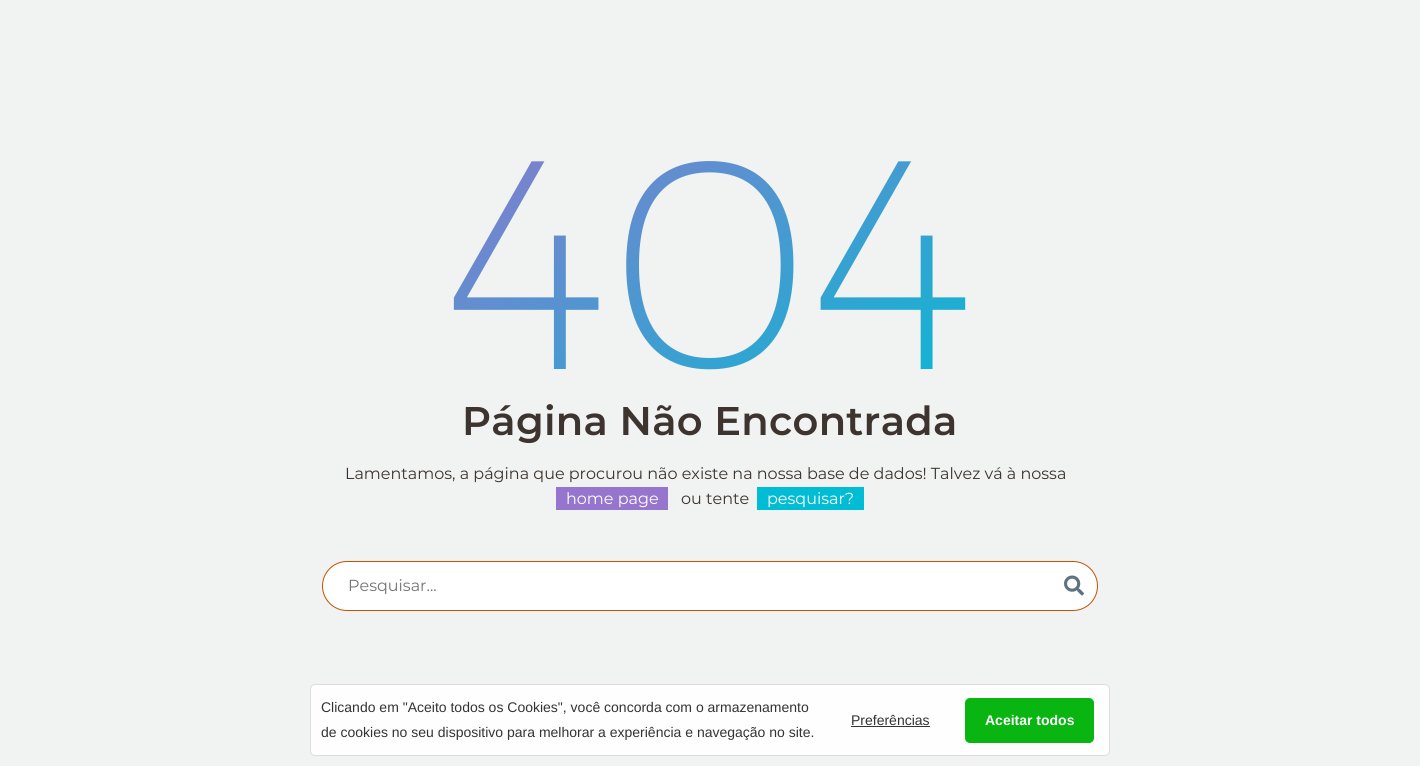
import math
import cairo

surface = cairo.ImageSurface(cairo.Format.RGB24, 1420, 766)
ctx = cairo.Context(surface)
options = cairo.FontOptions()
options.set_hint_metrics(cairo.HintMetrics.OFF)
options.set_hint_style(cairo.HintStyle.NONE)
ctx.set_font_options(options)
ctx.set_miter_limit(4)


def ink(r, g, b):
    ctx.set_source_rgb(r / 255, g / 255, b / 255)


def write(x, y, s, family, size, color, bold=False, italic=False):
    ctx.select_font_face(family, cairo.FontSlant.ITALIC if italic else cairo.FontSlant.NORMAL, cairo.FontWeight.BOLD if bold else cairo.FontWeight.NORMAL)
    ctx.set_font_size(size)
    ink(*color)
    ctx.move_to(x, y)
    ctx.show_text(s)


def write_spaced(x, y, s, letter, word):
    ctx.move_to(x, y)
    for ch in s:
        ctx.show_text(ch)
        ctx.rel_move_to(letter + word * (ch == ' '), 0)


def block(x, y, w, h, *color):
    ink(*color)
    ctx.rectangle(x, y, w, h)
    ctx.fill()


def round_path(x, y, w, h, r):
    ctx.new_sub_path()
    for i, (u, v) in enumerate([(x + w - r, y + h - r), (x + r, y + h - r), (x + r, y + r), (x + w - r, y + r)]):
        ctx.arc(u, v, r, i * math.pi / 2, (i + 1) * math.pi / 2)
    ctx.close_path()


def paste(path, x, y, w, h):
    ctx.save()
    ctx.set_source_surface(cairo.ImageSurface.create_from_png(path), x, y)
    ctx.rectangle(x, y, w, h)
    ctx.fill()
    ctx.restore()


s1 = dict(family="Montserrat", size=16, color=(61, 52, 47))
s2 = dict(family="Montserrat", size=16, color=(255, 255, 255))
s3 = dict(family="Montserrat", size=16, color=(117, 117, 117))
s4 = dict(family="Liberation Sans", size=14, color=(51, 51, 51))
s5 = dict(family="Liberation Sans", size=14, color=(255, 255, 255), bold=True)

ink(240, 243, 242)
ctx.paint()
ctx.select_font_face("Montserrat ExtraLight")
ctx.set_font_size(297)
gradient = cairo.LinearGradient(444, 82, 770, 573)
gradient.add_color_stop_rgba(0, 0.584, 0.459, 0.804, 1)
gradient.add_color_stop_rgba(1, 0, 0.737, 0.831, 1)
ctx.set_source(gradient)
write_spaced(444, 369, "404", 0.5, 0)
ctx.select_font_face("Montserrat SemiBold")
ctx.set_font_size(40)
ink(61, 52, 47)
write_spaced(462, 435, "Página Não Encontrada", 0.3, 0)
write(345, 479, "Lamentamos, a página que procurou não existe na nossa base de dados! Talvez vá à nossa", **s1)
block(556, 487, 112, 23, 149, 117, 205)
write(566, 504, "home page", **s2)
write(681, 504, "ou tente", **s1)
block(757, 487, 107, 23, 0, 188, 212)
write(767, 504, "pesquisar?", **s2)
round_path(322.5, 561.5, 775, 49, 24.5)
ctx.fill_preserve()
ink(201, 80, 0)
ctx.set_line_width(1)
ctx.stroke()
write(348, 591, "Pesquisar...", **s3)
paste("pic1.png", 1064, 575, 20, 21)
ink(254, 254, 254)
round_path(310.5, 684.5, 799, 71, 4.5)
ctx.fill_preserve()
ink(224, 220, 220)
ctx.stroke()
write(321, 712, "Clicando em \"Aceito todos os Cookies\", você concorda com o armazenamento", **s4)
write(321, 737, "de cookies no seu dispositivo para melhorar a experiência e navegação no site.", **s4)
write(851, 725, "Preferências", **s4)
block(851, 726, 79, 1, 51, 51, 51)
ink(8, 181, 17)
round_path(965, 698, 129, 45, 5)
ctx.fill()
write(985, 725, "Aceitar todos", **s5)
surface.write_to_png("screenshot.png")
